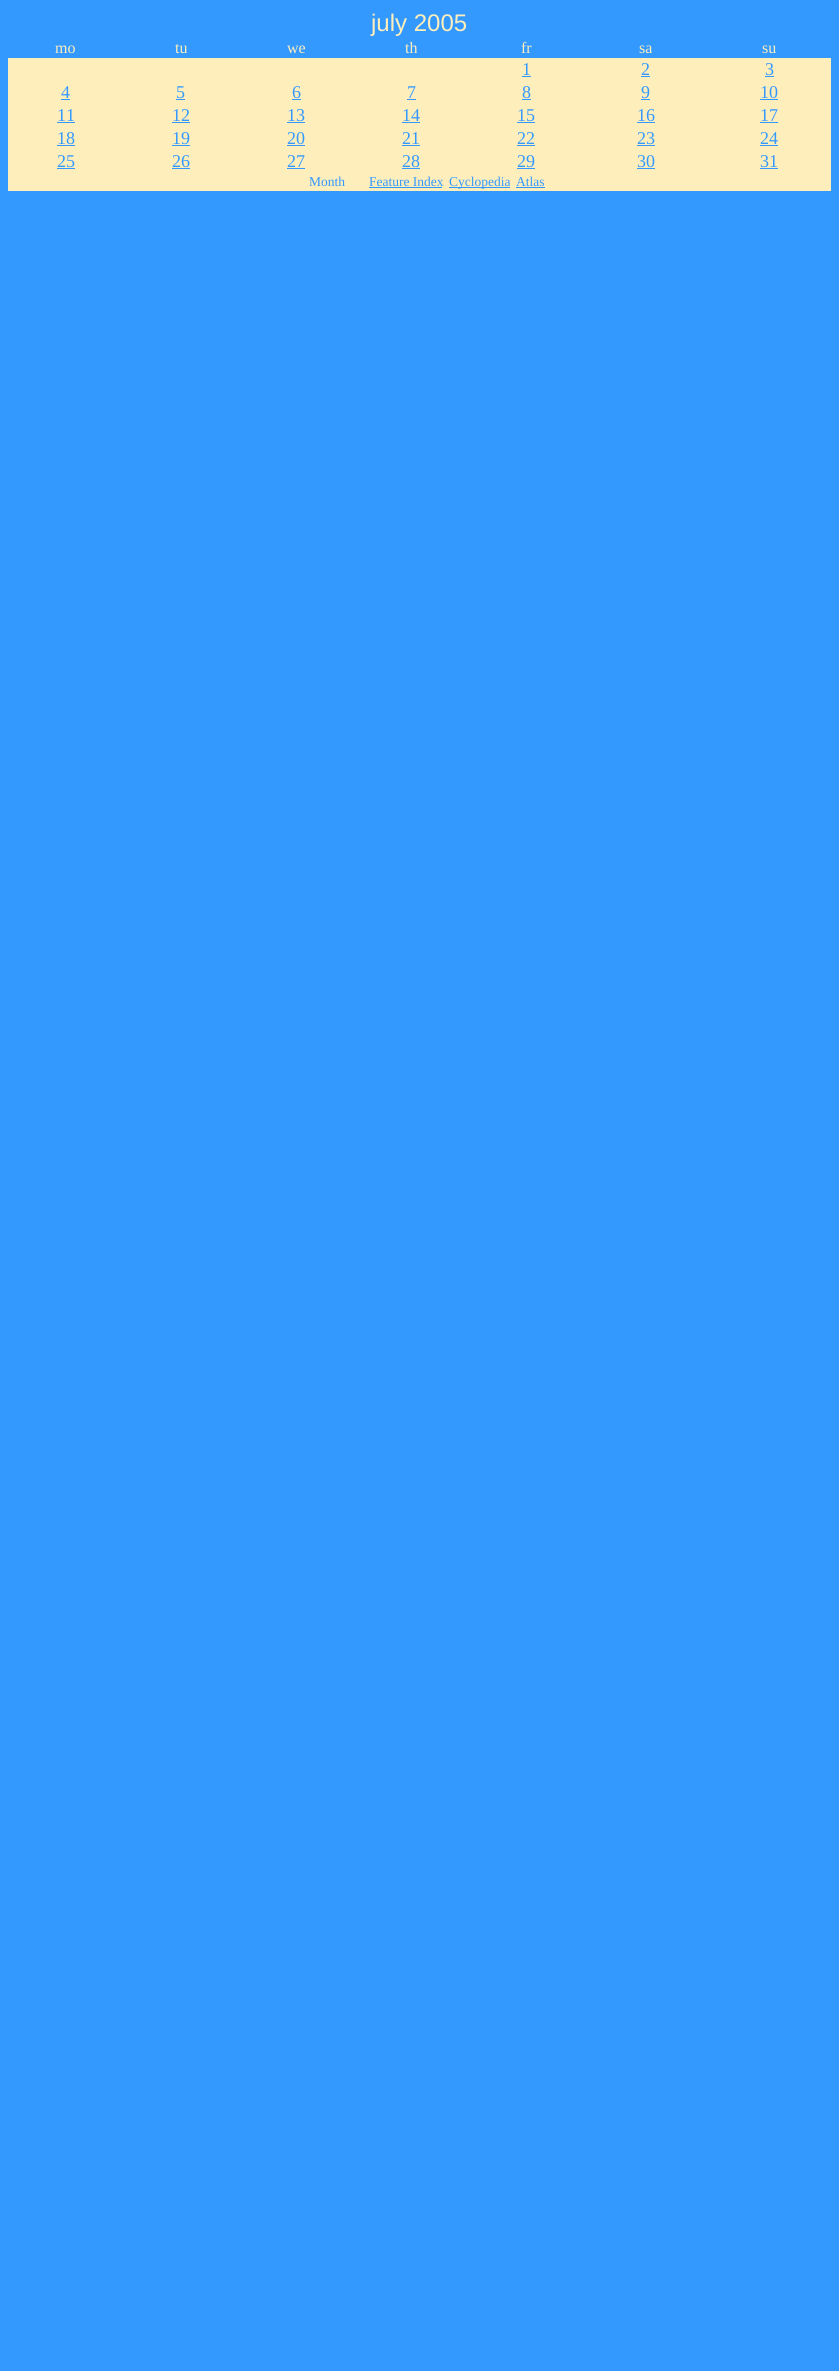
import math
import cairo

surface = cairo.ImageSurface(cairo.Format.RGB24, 839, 2371)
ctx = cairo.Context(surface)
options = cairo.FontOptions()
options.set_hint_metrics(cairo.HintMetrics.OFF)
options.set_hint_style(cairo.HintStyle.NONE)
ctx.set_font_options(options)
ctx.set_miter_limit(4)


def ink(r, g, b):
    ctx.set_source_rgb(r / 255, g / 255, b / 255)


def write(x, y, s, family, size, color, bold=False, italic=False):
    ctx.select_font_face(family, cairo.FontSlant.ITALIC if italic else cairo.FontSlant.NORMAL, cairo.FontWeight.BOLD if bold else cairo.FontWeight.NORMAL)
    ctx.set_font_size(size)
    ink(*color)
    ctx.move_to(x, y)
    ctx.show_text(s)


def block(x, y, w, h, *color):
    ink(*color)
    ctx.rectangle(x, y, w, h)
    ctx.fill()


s1 = dict(family="Liberation Sans", size=24, color=(254, 238, 187))
s2 = dict(family="Liberation Serif", size=16, color=(254, 238, 187))
s3 = dict(family="Liberation Serif", size=18, color=(51, 153, 255))
s4 = dict(family="Liberation Serif", size=13.5, color=(51, 153, 255))

ink(51, 153, 255)
ctx.paint()
block(8, 58, 823, 133, 254, 238, 187)
write(371, 31, "july 2005", **s1)
write(55, 53, "mo", **s2)
write(175, 53, "tu", **s2)
write(287, 53, "we", **s2)
write(405, 53, "th", **s2)
write(521, 53, "fr", **s2)
write(639, 53, "sa", **s2)
write(762, 53, "su", **s2)
write(522, 75, "1", **s3)
block(522, 76, 9, 1, 51, 153, 255)
write(641, 75, "2", **s3)
block(641, 76, 9, 1, 51, 153, 255)
write(765, 75, "3", **s3)
block(765, 76, 9, 1, 51, 153, 255)
write(61, 98, "4", **s3)
block(61, 99, 9, 1, 51, 153, 255)
write(176, 98, "5", **s3)
block(176, 99, 9, 1, 51, 153, 255)
write(292, 98, "6", **s3)
block(292, 99, 9, 1, 51, 153, 255)
write(407, 98, "7", **s3)
block(407, 99, 9, 1, 51, 153, 255)
write(522, 98, "8", **s3)
block(522, 99, 9, 1, 51, 153, 255)
write(641, 98, "9", **s3)
block(641, 99, 9, 1, 51, 153, 255)
write(760, 98, "10", **s3)
block(760, 99, 18, 1, 51, 153, 255)
write(57, 121, "11", **s3)
block(57, 122, 18, 1, 51, 153, 255)
write(172, 121, "12", **s3)
block(172, 122, 18, 1, 51, 153, 255)
write(287, 121, "13", **s3)
block(287, 122, 18, 1, 51, 153, 255)
write(402, 121, "14", **s3)
block(402, 122, 18, 1, 51, 153, 255)
write(517, 121, "15", **s3)
block(517, 122, 18, 1, 51, 153, 255)
write(637, 121, "16", **s3)
block(637, 122, 18, 1, 51, 153, 255)
write(760, 121, "17", **s3)
block(760, 122, 18, 1, 51, 153, 255)
write(57, 144, "18", **s3)
block(57, 145, 18, 1, 51, 153, 255)
write(172, 144, "19", **s3)
block(172, 145, 18, 1, 51, 153, 255)
write(287, 144, "20", **s3)
block(287, 145, 18, 1, 51, 153, 255)
write(402, 144, "21", **s3)
block(402, 145, 18, 1, 51, 153, 255)
write(517, 144, "22", **s3)
block(517, 145, 18, 1, 51, 153, 255)
write(637, 144, "23", **s3)
block(637, 145, 18, 1, 51, 153, 255)
write(760, 144, "24", **s3)
block(760, 145, 18, 1, 51, 153, 255)
write(57, 167, "25", **s3)
block(57, 168, 18, 1, 51, 153, 255)
write(172, 167, "26", **s3)
block(172, 168, 18, 1, 51, 153, 255)
write(287, 167, "27", **s3)
block(287, 168, 18, 1, 51, 153, 255)
write(402, 167, "28", **s3)
block(402, 168, 18, 1, 51, 153, 255)
write(517, 167, "29", **s3)
block(517, 168, 18, 1, 51, 153, 255)
write(637, 167, "30", **s3)
block(637, 168, 18, 1, 51, 153, 255)
write(760, 167, "31", **s3)
block(760, 168, 18, 1, 51, 153, 255)
write(309, 186, "Month", **s4)
write(369, 186, "Feature Index", **s4)
block(369, 187, 73, 1, 51, 153, 255)
block(449, 187, 61, 1, 51, 153, 255)
write(449, 186, "Cyclopedia", **s4)
write(516, 186, "Atlas", **s4)
block(516, 187, 29, 1, 51, 153, 255)
surface.write_to_png("screenshot.png")
